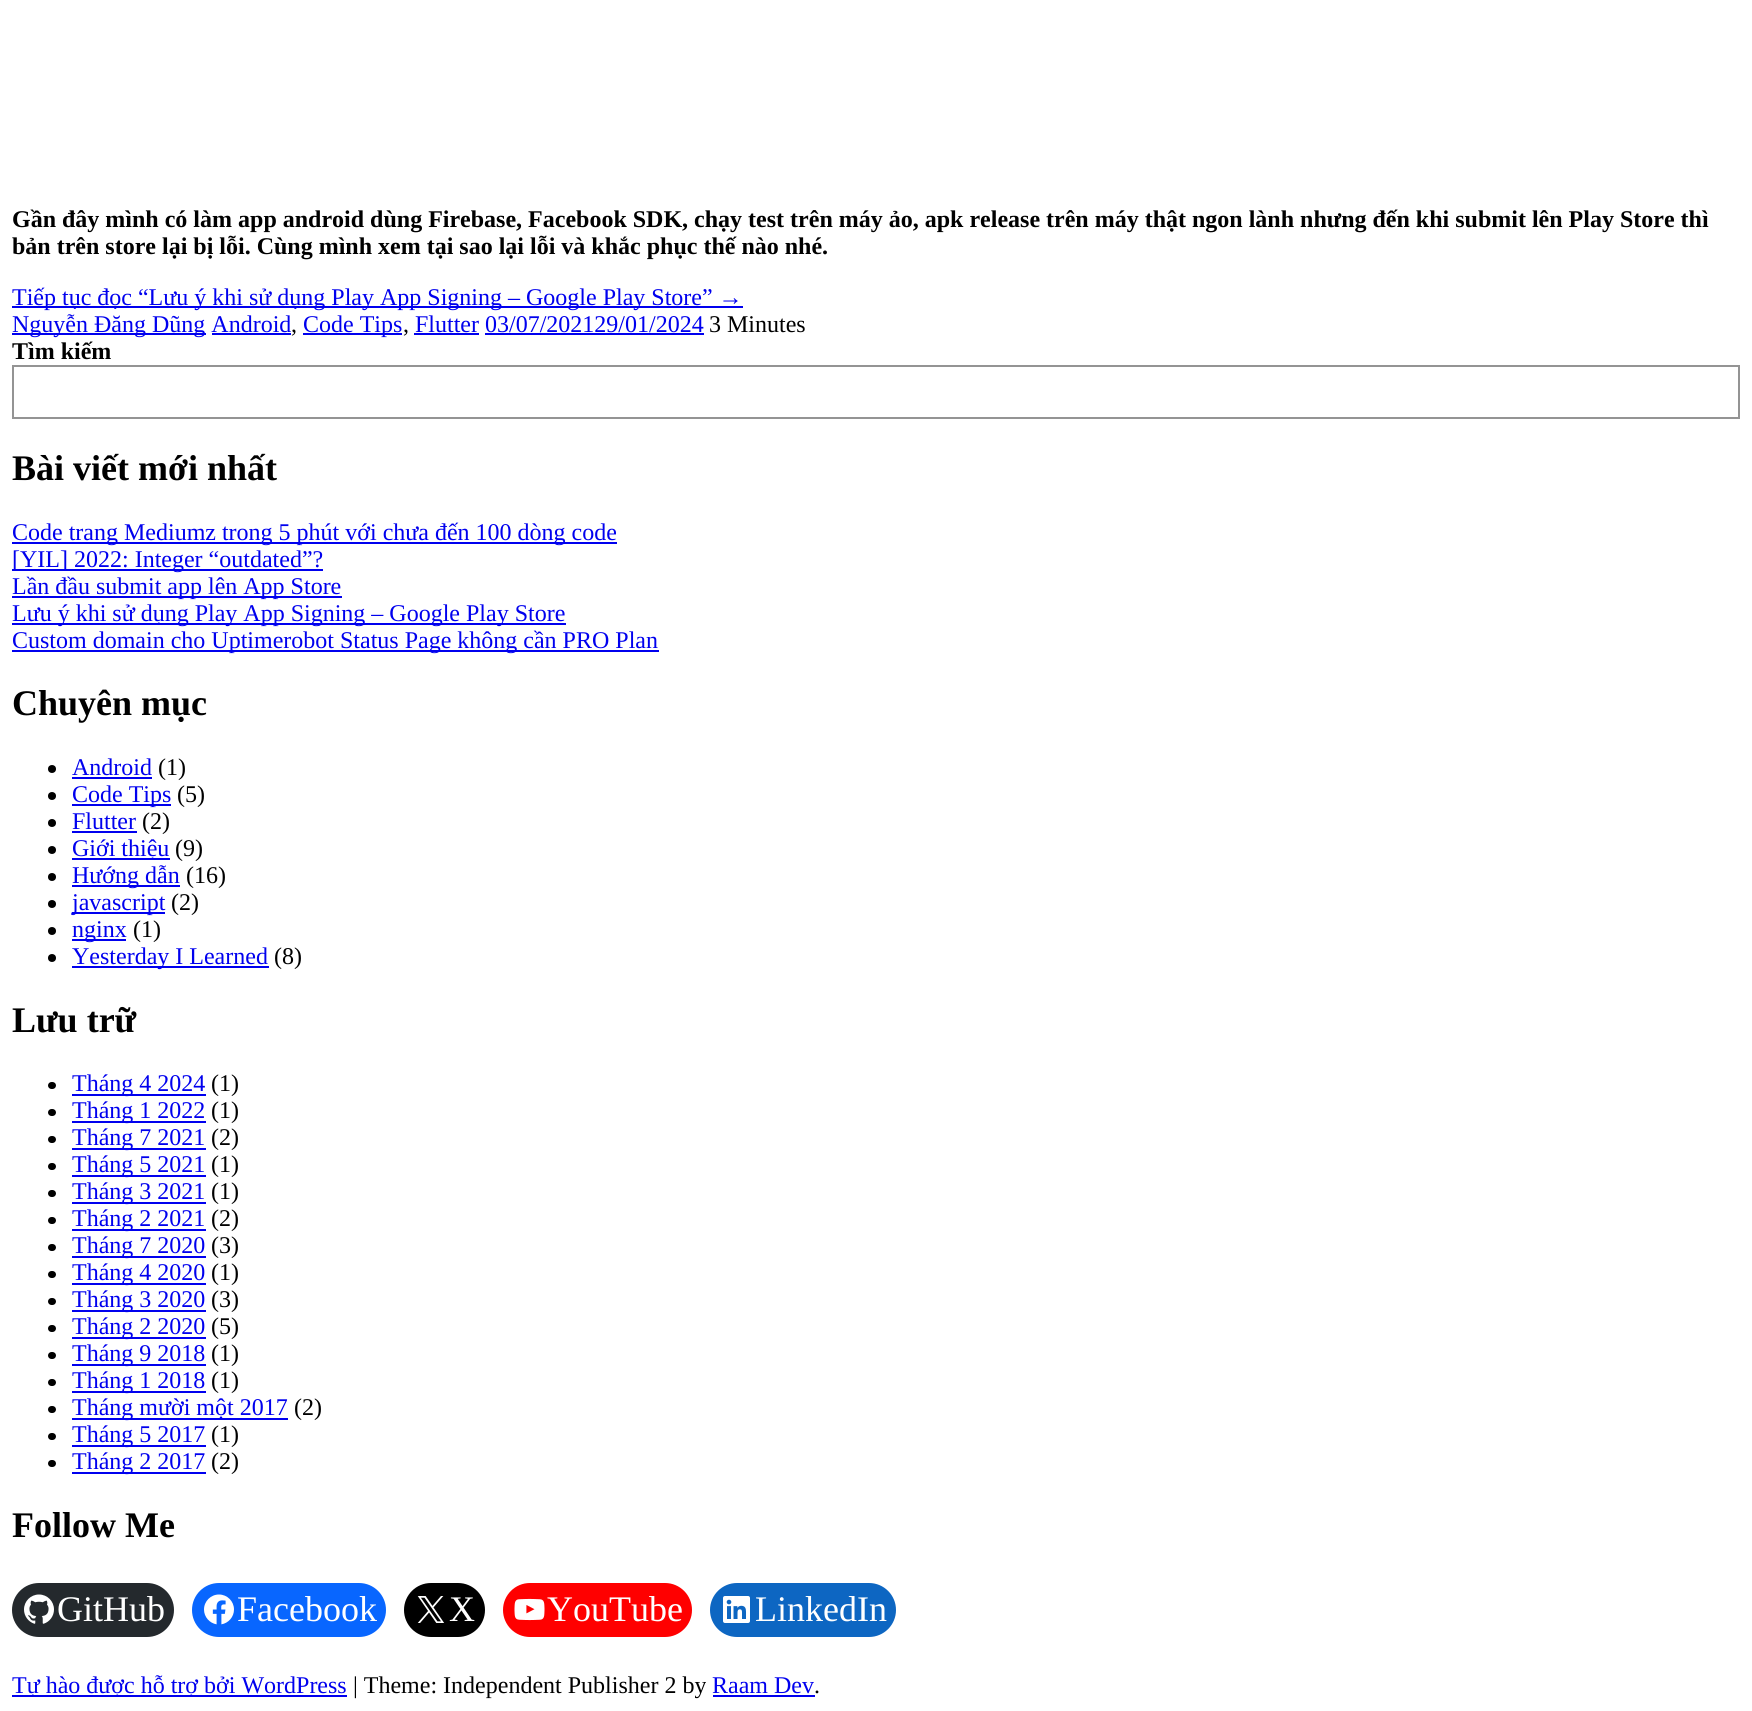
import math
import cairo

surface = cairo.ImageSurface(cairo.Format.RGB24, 1752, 1711)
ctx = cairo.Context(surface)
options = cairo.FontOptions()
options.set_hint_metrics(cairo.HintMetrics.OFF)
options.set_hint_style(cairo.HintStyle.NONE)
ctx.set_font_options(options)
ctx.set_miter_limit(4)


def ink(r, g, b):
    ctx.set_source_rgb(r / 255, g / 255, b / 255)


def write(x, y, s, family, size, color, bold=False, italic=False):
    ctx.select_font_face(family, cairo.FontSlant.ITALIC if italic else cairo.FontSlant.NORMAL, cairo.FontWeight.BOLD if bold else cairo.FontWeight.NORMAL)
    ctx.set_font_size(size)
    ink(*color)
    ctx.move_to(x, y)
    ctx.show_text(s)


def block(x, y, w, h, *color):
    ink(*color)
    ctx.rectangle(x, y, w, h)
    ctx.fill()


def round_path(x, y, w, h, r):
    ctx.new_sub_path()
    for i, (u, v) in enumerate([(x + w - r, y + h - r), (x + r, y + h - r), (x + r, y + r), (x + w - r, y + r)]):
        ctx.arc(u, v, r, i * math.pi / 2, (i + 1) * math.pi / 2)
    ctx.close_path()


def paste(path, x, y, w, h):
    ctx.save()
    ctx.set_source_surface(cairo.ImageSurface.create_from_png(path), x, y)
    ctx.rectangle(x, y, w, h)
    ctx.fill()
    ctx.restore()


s1 = dict(family="Liberation Serif", size=24, color=(0, 0, 0), bold=True)
s2 = dict(family="Liberation Serif", size=24, color=(0, 0, 238))
s3 = dict(family="Liberation Serif", size=24, color=(0, 0, 0))
s4 = dict(family="Liberation Serif", size=36, color=(0, 0, 0), bold=True)
s5 = dict(family="Liberation Serif", size=36, color=(255, 255, 255))

ink(255, 255, 255)
ctx.paint()
write(12, 227, "Gần đây mình có làm app android dùng Firebase, Facebook SDK, chạy test trên máy ảo, apk release trên máy thật ngon lành nhưng đến khi submit lên Play Store thì", **s1)
write(12, 254, "bản trên store lại bị lỗi. Cùng mình xem tại sao lại lỗi và khắc phục thế nào nhé.", **s1)
block(12, 306, 731, 2, 0, 0, 238)
write(12, 305, "Tiếp tục đọc “Lưu ý khi sử dụng Play App Signing – Google Play Store” →", **s2)
block(12, 333, 194, 2, 0, 0, 238)
write(12, 332, "Nguyễn Đăng Dũng Android", **s2)
write(291, 332, ",", **s3)
block(212, 333, 79, 2, 0, 0, 238)
block(303, 333, 99, 2, 0, 0, 238)
write(303, 332, "Code Tips", **s2)
write(403, 332, ",", **s3)
block(414, 333, 65, 2, 0, 0, 238)
write(415, 332, "Flutter 03/07/202129/01/2024", **s2)
write(709, 332, "3 Minutes", **s3)
block(485, 333, 219, 2, 0, 0, 238)
write(12, 359, "Tìm kiếm", **s1)
ctx.rectangle(13, 366, 1726, 52)
ink(148, 148, 148)
ctx.stroke()
write(12, 480, "Bài viết mới nhất", **s4)
block(12, 542, 605, 2, 0, 0, 238)
write(12, 540, "Code trang Mediumz trong 5 phút với chưa đến 100 dòng code", **s2)
block(12, 569, 311, 2, 0, 0, 238)
write(12, 567, "[YIL] 2022: Integer “outdated”?", **s2)
block(12, 596, 330, 2, 0, 0, 238)
write(12, 594, "Lần đầu submit app lên App Store", **s2)
block(12, 623, 554, 2, 0, 0, 238)
write(12, 621, "Lưu ý khi sử dụng Play App Signing – Google Play Store", **s2)
block(12, 650, 647, 2, 0, 0, 238)
write(12, 648, "Custom domain cho Uptimerobot Status Page không cần PRO Plan", **s2)
write(12, 715, "Chuyên mục", **s4)
ctx.new_path()
ctx.arc(52, 769, 4, 0, 2 * math.pi)
ctx.fill()
write(72, 775, "Android", **s2)
block(72, 777, 80, 2, 0, 0, 238)
write(158, 775, "(1)", **s3)
ctx.new_path()
ctx.arc(52, 796, 4, 0, 2 * math.pi)
ctx.fill()
block(72, 804, 99, 2, 0, 0, 238)
write(72, 802, "Code Tips", **s2)
write(177, 802, "(5)", **s3)
ctx.new_path()
ctx.arc(52, 823, 4, 0, 2 * math.pi)
ctx.fill()
write(72, 829, "Flutter", **s2)
block(72, 831, 65, 2, 0, 0, 238)
write(142, 829, "(2)", **s3)
ctx.new_path()
ctx.arc(52, 850, 4, 0, 2 * math.pi)
ctx.fill()
block(72, 858, 98, 2, 0, 0, 238)
write(72, 856, "Giới thiệu", **s2)
write(175, 856, "(9)", **s3)
ctx.new_path()
ctx.arc(52, 877, 4, 0, 2 * math.pi)
ctx.fill()
block(72, 885, 108, 2, 0, 0, 238)
write(72, 883, "Hướng dẫn", **s2)
write(186, 883, "(16)", **s3)
ctx.new_path()
ctx.arc(52, 904, 4, 0, 2 * math.pi)
ctx.fill()
block(72, 912, 93, 2, 0, 0, 238)
write(72, 910, "javascript", **s2)
write(171, 910, "(2)", **s3)
ctx.new_path()
ctx.arc(52, 931, 4, 0, 2 * math.pi)
ctx.fill()
block(72, 939, 54, 2, 0, 0, 238)
write(72, 937, "nginx", **s2)
write(133, 937, "(1)", **s3)
ctx.new_path()
ctx.arc(52, 958, 4, 0, 2 * math.pi)
ctx.fill()
block(72, 966, 197, 2, 0, 0, 238)
write(72, 964, "Yesterday I Learned", **s2)
write(274, 964, "(8)", **s3)
write(12, 1032, "Lưu trữ", **s4)
round_path(48, 1082, 8, 7, 3.5)
ctx.fill()
block(72, 1094, 134, 2, 0, 0, 238)
write(72, 1091, "Tháng 4 2024", **s2)
write(211, 1091, "(1)", **s3)
round_path(48, 1109, 8, 7, 3.5)
ctx.fill()
block(72, 1121, 134, 2, 0, 0, 238)
write(72, 1118, "Tháng 1 2022", **s2)
write(211, 1118, "(1)", **s3)
round_path(48, 1136, 8, 7, 3.5)
ctx.fill()
block(72, 1148, 134, 2, 0, 0, 238)
write(72, 1145, "Tháng 7 2021", **s2)
write(211, 1145, "(2)", **s3)
round_path(48, 1163, 8, 7, 3.5)
ctx.fill()
block(72, 1175, 134, 2, 0, 0, 238)
write(72, 1172, "Tháng 5 2021", **s2)
write(211, 1172, "(1)", **s3)
round_path(48, 1190, 8, 7, 3.5)
ctx.fill()
block(72, 1202, 134, 2, 0, 0, 238)
write(72, 1199, "Tháng 3 2021", **s2)
write(211, 1199, "(1)", **s3)
round_path(48, 1217, 8, 7, 3.5)
ctx.fill()
block(72, 1229, 134, 2, 0, 0, 238)
write(72, 1226, "Tháng 2 2021", **s2)
write(211, 1226, "(2)", **s3)
round_path(48, 1244, 8, 7, 3.5)
ctx.fill()
block(72, 1256, 134, 2, 0, 0, 238)
write(72, 1253, "Tháng 7 2020", **s2)
write(211, 1253, "(3)", **s3)
round_path(48, 1271, 8, 7, 3.5)
ctx.fill()
block(72, 1283, 134, 2, 0, 0, 238)
write(72, 1280, "Tháng 4 2020", **s2)
write(211, 1280, "(1)", **s3)
round_path(48, 1298, 8, 7, 3.5)
ctx.fill()
block(72, 1310, 134, 2, 0, 0, 238)
write(72, 1307, "Tháng 3 2020", **s2)
write(211, 1307, "(3)", **s3)
round_path(48, 1325, 8, 7, 3.5)
ctx.fill()
block(72, 1337, 134, 2, 0, 0, 238)
write(72, 1334, "Tháng 2 2020", **s2)
write(211, 1334, "(5)", **s3)
round_path(48, 1352, 8, 7, 3.5)
ctx.fill()
block(72, 1364, 134, 2, 0, 0, 238)
write(72, 1361, "Tháng 9 2018", **s2)
write(211, 1361, "(1)", **s3)
round_path(48, 1379, 8, 7, 3.5)
ctx.fill()
block(72, 1391, 134, 2, 0, 0, 238)
write(72, 1388, "Tháng 1 2018", **s2)
write(211, 1388, "(1)", **s3)
round_path(48, 1406, 8, 7, 3.5)
ctx.fill()
block(72, 1418, 216, 2, 0, 0, 238)
write(72, 1415, "Tháng mười một 2017", **s2)
write(294, 1415, "(2)", **s3)
round_path(48, 1433, 8, 7, 3.5)
ctx.fill()
block(72, 1445, 134, 2, 0, 0, 238)
write(72, 1442, "Tháng 5 2017", **s2)
write(211, 1442, "(1)", **s3)
round_path(48, 1460, 8, 7, 3.5)
ctx.fill()
block(72, 1472, 134, 2, 0, 0, 238)
write(72, 1469, "Tháng 2 2017", **s2)
write(211, 1469, "(2)", **s3)
write(12, 1537, "Follow Me", **s4)
ink(36, 41, 45)
round_path(12, 1583, 162, 54, 27)
ctx.fill()
paste("pic1.png", 24, 1594, 30, 30)
write(57, 1621, "GitHub", **s5)
ink(8, 102, 255)
round_path(192, 1583, 194, 54, 27)
ctx.fill()
paste("pic2.png", 204, 1594, 30, 31)
write(237, 1621, "Facebook", **s5)
ink(0, 0, 0)
round_path(404, 1583, 81, 54, 27)
ctx.fill()
paste("pic3.png", 417, 1596, 28, 27)
write(449, 1621, "X", **s5)
ink(255, 0, 0)
round_path(503, 1583, 189, 54, 27)
ctx.fill()
paste("pic4.png", 514, 1598, 31, 23)
write(547, 1621, "YouTube", **s5)
ink(13, 102, 194)
round_path(710, 1583, 186, 54, 27)
ctx.fill()
paste("pic5.png", 723, 1596, 27, 27)
write(755, 1621, "LinkedIn", **s5)
block(12, 1695, 335, 2, 0, 0, 238)
write(12, 1693, "Tự hào được hỗ trợ bởi WordPress", **s2)
write(353, 1693, "| Theme: Independent Publisher 2 by", **s3)
write(712, 1693, "Raam Dev", **s2)
block(713, 1695, 102, 2, 0, 0, 238)
write(814, 1693, ".", **s3)
surface.write_to_png("screenshot.png")
